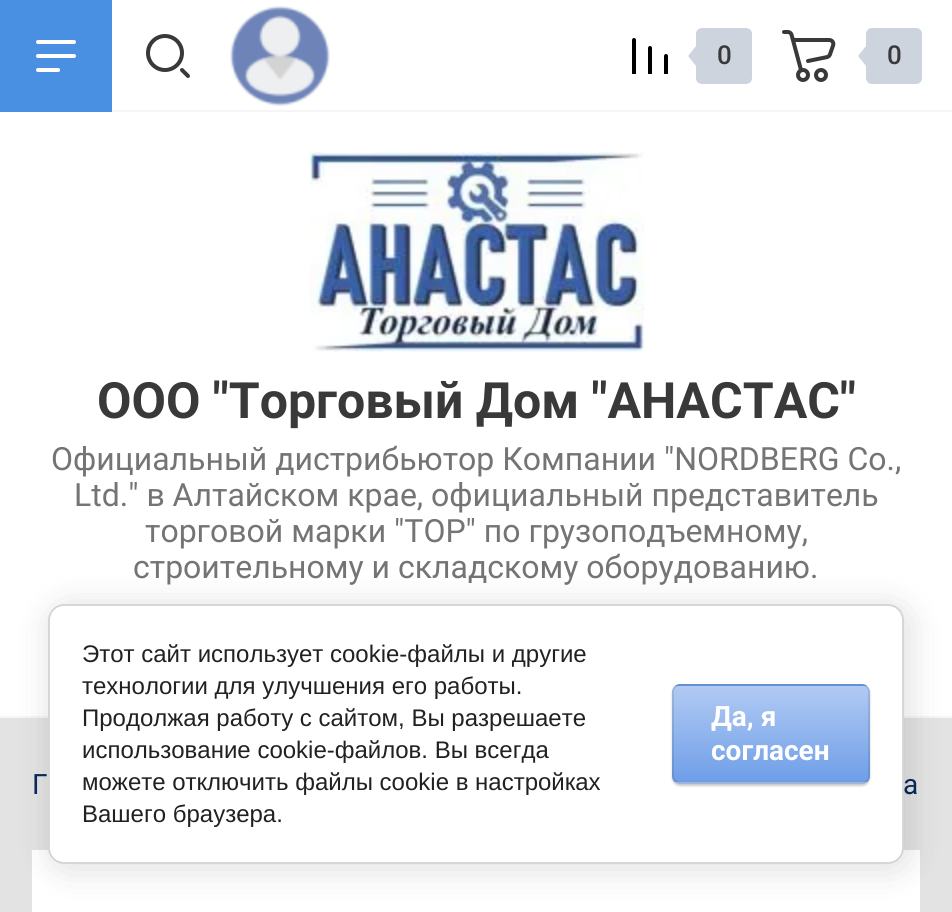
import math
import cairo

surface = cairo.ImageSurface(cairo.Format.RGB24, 952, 912)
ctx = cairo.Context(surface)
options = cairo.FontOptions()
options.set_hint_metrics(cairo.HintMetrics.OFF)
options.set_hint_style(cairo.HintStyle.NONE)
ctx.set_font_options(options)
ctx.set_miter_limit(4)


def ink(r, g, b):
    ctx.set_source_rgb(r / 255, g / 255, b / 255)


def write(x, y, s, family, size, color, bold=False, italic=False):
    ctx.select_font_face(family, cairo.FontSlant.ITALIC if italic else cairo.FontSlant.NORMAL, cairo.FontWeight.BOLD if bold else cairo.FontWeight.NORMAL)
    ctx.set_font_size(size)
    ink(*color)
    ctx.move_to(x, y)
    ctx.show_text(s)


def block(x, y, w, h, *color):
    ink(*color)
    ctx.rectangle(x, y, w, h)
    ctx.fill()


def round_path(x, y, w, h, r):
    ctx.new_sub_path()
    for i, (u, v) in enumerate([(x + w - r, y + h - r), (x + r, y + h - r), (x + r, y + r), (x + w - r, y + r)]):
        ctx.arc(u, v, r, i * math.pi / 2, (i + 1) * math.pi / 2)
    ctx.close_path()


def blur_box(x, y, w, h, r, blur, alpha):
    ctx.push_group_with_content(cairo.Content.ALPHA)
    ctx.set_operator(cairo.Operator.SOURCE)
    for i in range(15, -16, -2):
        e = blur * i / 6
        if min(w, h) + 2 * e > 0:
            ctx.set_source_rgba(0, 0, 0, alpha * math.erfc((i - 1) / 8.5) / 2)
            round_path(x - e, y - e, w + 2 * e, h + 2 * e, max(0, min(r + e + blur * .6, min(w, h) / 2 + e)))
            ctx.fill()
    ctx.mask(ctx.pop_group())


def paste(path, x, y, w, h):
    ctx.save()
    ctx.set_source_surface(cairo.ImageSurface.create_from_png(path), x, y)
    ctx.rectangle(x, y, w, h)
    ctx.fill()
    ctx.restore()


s1 = dict(family="Roboto Medium", size=26, color=(57, 57, 57))
s2 = dict(family="Roboto", size=50, color=(57, 57, 57), bold=True)
s3 = dict(family="Roboto", size=32, color=(116, 116, 116))
s4 = dict(family="Roboto", size=28, color=(8, 42, 92))
s5 = dict(family="Liberation Sans", size=24, color=(33, 33, 33))
s6 = dict(family="Roboto", size=28, color=(255, 255, 255), bold=True)

ink(227, 227, 227)
ctx.paint()
block(0, 0, 952, 716, 255, 255, 255)
block(0, 716, 952, 2, 245, 245, 245)
block(112, 110, 840, 2, 245, 245, 245)
block(0, 0, 112, 112, 74, 144, 226)
paste("pic1.png", 36, 40, 40, 32)
paste("pic2.png", 146, 34, 44, 44)
paste("pic3.png", 230, 6, 100, 100)
paste("pic4.png", 632, 38, 36, 36)
ink(206, 212, 222)
round_path(696, 28, 56, 56, 6)
ctx.fill()
ctx.new_path()
ctx.move_to(696, 46)
ctx.line_to(696, 66)
ctx.line_to(688, 56)
ctx.close_path()
ctx.fill()
write(717, 64, "0", **s1)
paste("pic5.png", 782, 30, 54, 52)
ink(206, 212, 222)
round_path(866, 28, 56, 56, 6)
ctx.fill()
ctx.new_path()
ctx.move_to(866, 46)
ctx.line_to(866, 66)
ctx.line_to(858, 56)
ctx.close_path()
ctx.fill()
write(887, 64, "0", **s1)
paste("pic6.png", 310, 152, 334, 200)
write(97, 418, "ООО \"Торговый Дом \"АНАСТАС\"", **s2)
write(51, 470, "Официальный дистрибьютор Компании \"NORDBERG Co.,", **s3)
write(74, 506, "Ltd.\" в Алтайском крае, официальный представитель", **s3)
write(145, 542, "торговой марки \"ТОР\" по грузоподъемному,", **s3)
write(133, 578, "строительному и складскому оборудованию.", **s3)
write(32, 794, "Г", **s4)
write(903, 794, "а", **s4)
block(32, 850, 888, 62, 255, 255, 255)
ink(0, 0, 0)
blur_box(52, 608, 856, 260, 16, 18, 0.14)
ink(255, 255, 255)
round_path(49, 605, 854, 258, 15)
ctx.fill_preserve()
ink(214, 214, 214)
ctx.stroke()
write(82, 662, "Этот сайт использует cookie-файлы и другие", **s5)
write(82, 694, "технологии для улучшения его работы.", **s5)
write(82, 726, "Продолжая работу с сайтом, Вы разрешаете", **s5)
write(82, 758, "использование cookie-файлов. Вы всегда", **s5)
write(82, 790, "можете отключить файлы cookie в настройках", **s5)
write(82, 822, "Вашего браузера.", **s5)
ink(0, 0, 0)
blur_box(672, 686, 198, 100, 8, 1, 0.2)
ctx.save()
round_path(672, 684, 198, 100, 8)
ctx.clip()
gradient = cairo.LinearGradient(771, 590, 771, 686)
gradient.add_color_stop_rgba(0, 0.694, 0.792, 0.953, 1)
gradient.add_color_stop_rgba(1, 0.435, 0.62, 0.91, 1)
ctx.set_source(gradient)
ctx.rectangle(672, 684, 198, 2)
ctx.fill()
gradient = cairo.LinearGradient(771, 686, 771, 782)
gradient.add_color_stop_rgba(0, 0.694, 0.792, 0.953, 1)
gradient.add_color_stop_rgba(1, 0.435, 0.62, 0.91, 1)
ctx.set_source(gradient)
ctx.rectangle(672, 686, 198, 96)
ctx.fill()
gradient = cairo.LinearGradient(771, 782, 771, 878)
gradient.add_color_stop_rgba(0, 0.694, 0.792, 0.953, 1)
gradient.add_color_stop_rgba(1, 0.435, 0.62, 0.91, 1)
ctx.set_source(gradient)
ctx.rectangle(672, 782, 198, 2)
ctx.fill()
ctx.restore()
round_path(673, 685, 196, 98, 7)
ctx.set_source_rgba(0, 0, 0, 0.1)
ctx.stroke()
write(711, 726, "Да, я", **s6)
write(711, 760, "согласен", **s6)
surface.write_to_png("screenshot.png")
